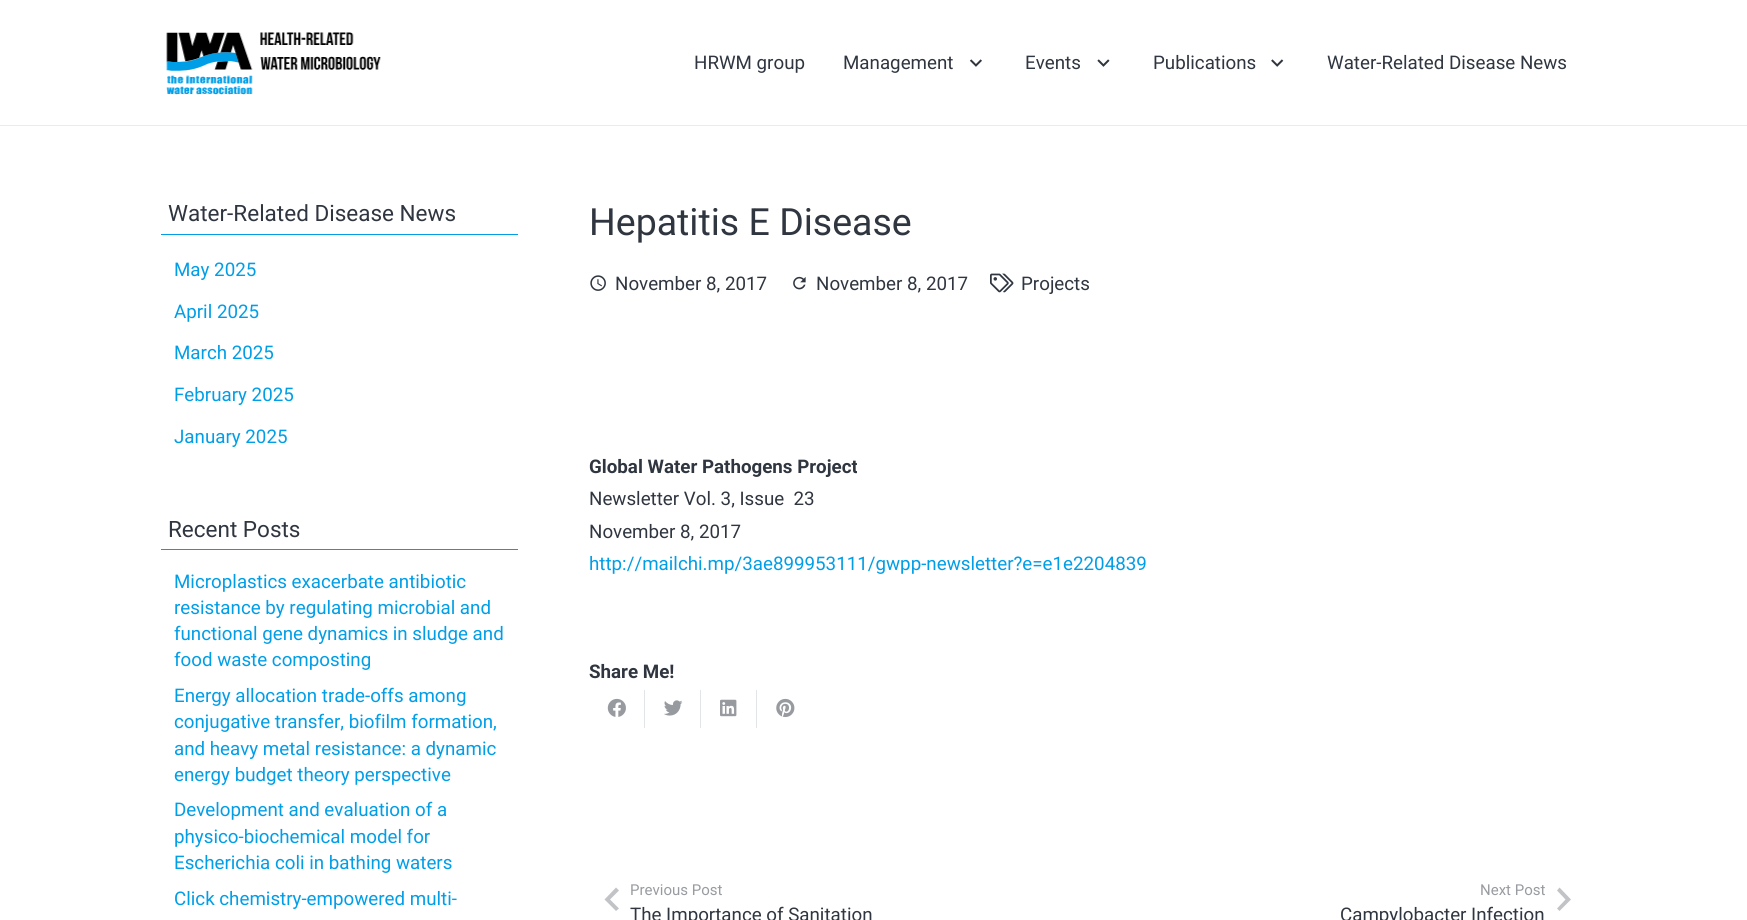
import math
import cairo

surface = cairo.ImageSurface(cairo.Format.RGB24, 1747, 920)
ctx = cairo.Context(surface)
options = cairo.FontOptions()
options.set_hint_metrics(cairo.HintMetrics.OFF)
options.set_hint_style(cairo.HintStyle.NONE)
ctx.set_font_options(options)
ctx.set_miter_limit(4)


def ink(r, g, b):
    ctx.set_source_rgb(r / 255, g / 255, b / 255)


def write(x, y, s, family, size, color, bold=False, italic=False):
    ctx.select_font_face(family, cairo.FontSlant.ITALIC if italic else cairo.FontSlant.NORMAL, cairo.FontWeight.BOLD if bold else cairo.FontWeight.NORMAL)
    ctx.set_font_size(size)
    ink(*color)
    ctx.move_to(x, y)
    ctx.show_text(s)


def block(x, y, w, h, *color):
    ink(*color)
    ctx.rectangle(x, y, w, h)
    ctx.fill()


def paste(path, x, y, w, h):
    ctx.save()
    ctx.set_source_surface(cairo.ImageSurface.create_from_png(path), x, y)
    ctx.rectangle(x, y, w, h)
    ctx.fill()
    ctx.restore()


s1 = dict(family="Roboto", size=18.75, color=(48, 54, 64))
s2 = dict(family="Roboto", size=22.5, color=(48, 54, 64))
s3 = dict(family="Roboto", size=18.75, color=(1, 158, 231))
s4 = dict(family="Roboto", size=37.5, color=(48, 54, 64))
s5 = dict(family="Roboto", size=18.75, color=(48, 54, 64), bold=True)
s6 = dict(family="Roboto", size=15, color=(152, 155, 160))

ink(255, 255, 255)
ctx.paint()
ink(235, 235, 235)
ctx.new_path()
ctx.move_to(0, 125)
ctx.line_to(0, 126)
ctx.line_to(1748, 126)
ctx.line_to(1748, 1)
ctx.line_to(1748, 125)
ctx.close_path()
ctx.fill()
paste("pic1.png", 166, 32, 215, 63)
write(694, 69, "HRWM group", **s1)
write(843, 69, "Management", **s1)
paste("pic2.png", 969, 59, 13, 8)
write(1025, 69, "Events", **s1)
paste("pic3.png", 1097, 59, 13, 8)
write(1153, 69, "Publications", **s1)
paste("pic4.png", 1271, 59, 13, 8)
write(1327, 69, "Water-Related Disease News", **s1)
block(161, 234, 357, 1, 1, 158, 231)
write(168, 221, "Water-Related Disease News", **s2)
write(174, 276, "May 2025", **s3)
write(174, 318, "April 2025", **s3)
write(174, 359, "March 2025", **s3)
write(174, 401, "February 2025", **s3)
write(174, 443, "January 2025", **s3)
block(161, 549, 357, 1, 1, 158, 231)
write(168, 537, "Recent Posts", **s2)
write(174, 588, "Microplastics exacerbate antibiotic", **s3)
write(174, 614, "resistance by regulating microbial and", **s3)
write(174, 640, "functional gene dynamics in sludge and", **s3)
write(174, 666, "food waste composting", **s3)
write(174, 702, "Energy allocation trade-offs among", **s3)
write(174, 728, "conjugative transfer, biofilm formation,", **s3)
write(174, 755, "and heavy metal resistance: a dynamic", **s3)
write(174, 781, "energy budget theory perspective", **s3)
write(174, 816, "Development and evaluation of a", **s3)
write(174, 843, "physico-biochemical model for", **s3)
write(174, 869, "Escherichia coli in bathing waters", **s3)
write(174, 905, "Click chemistry-empowered multi-", **s3)
write(589, 235, "Hepatitis E Disease", **s4)
paste("pic5.png", 590, 275, 16, 16)
write(615, 290, "November 8, 2017", **s1)
paste("pic6.png", 793, 276, 13, 14)
write(816, 290, "November 8, 2017", **s1)
paste("pic7.png", 990, 273, 24, 20)
write(1021, 290, "Projects", **s1)
write(589, 473, "Global Water Pathogens Project", **s5)
write(589, 505, "Newsletter Vol. 3, Issue  23", **s1)
write(589, 538, "November 8, 2017", **s1)
write(589, 570, "http://mailchi.mp/3ae899953111/gwpp-newsletter?e=e1e2204839", **s3)
write(589, 678, "Share Me!", **s5)
block(644, 690, 1, 38, 225, 229, 232)
paste("pic8.png", 607, 698, 19, 19)
block(700, 690, 1, 38, 225, 229, 232)
paste("pic9.png", 664, 700, 19, 16)
block(756, 690, 1, 38, 225, 229, 232)
paste("pic10.png", 720, 699, 17, 18)
paste("pic11.png", 776, 698, 19, 19)
ink(193, 195, 198)
ctx.new_path()
ctx.move_to(619, 908.5)
ctx.line_to(616, 911)
ctx.line_to(604.5, 899.5)
ctx.line_to(616, 887.5)
ctx.line_to(619, 890.5)
ctx.line_to(610, 899.5)
ctx.close_path()
ctx.fill()
write(630, 895, "Previous Post", **s6)
write(630, 921, "The Importance of Sanitation", **s1)
write(1480, 895, "Next Post", **s6)
ink(193, 195, 198)
ctx.new_path()
ctx.move_to(1557, 908.5)
ctx.line_to(1565.5, 899.5)
ctx.line_to(1557, 890.5)
ctx.line_to(1559.5, 887.5)
ctx.line_to(1571, 899.5)
ctx.line_to(1559.5, 911)
ctx.close_path()
ctx.fill()
write(1340, 921, "Campylobacter Infection", **s1)
surface.write_to_png("screenshot.png")
